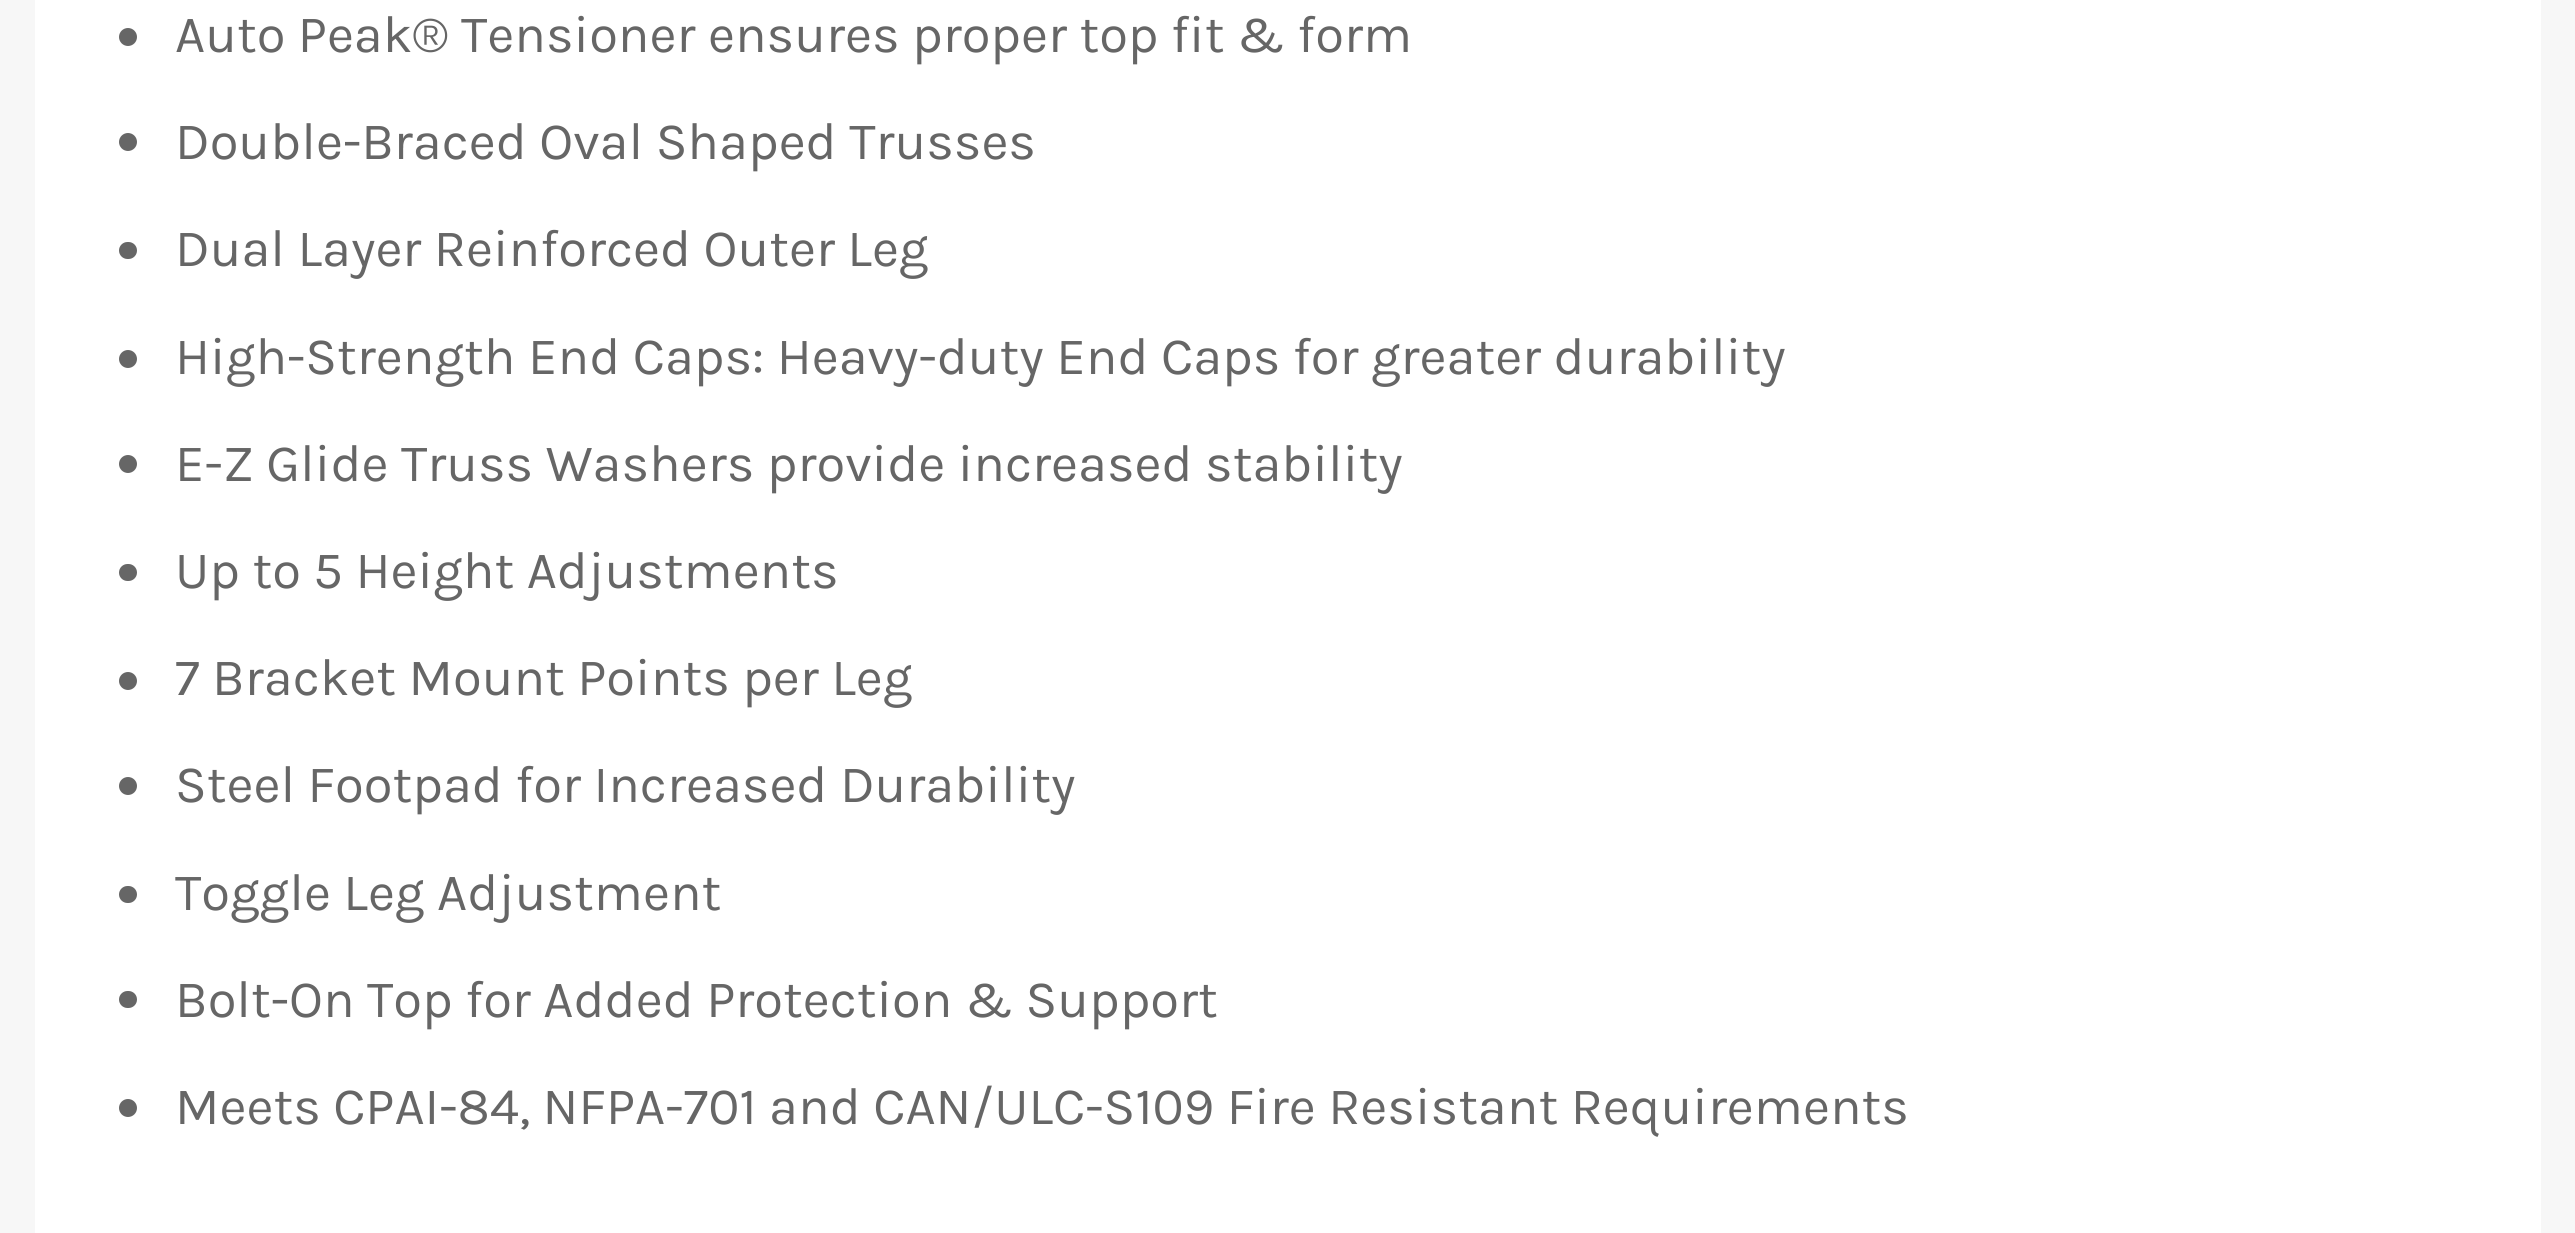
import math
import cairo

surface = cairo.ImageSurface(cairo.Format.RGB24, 2575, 1233)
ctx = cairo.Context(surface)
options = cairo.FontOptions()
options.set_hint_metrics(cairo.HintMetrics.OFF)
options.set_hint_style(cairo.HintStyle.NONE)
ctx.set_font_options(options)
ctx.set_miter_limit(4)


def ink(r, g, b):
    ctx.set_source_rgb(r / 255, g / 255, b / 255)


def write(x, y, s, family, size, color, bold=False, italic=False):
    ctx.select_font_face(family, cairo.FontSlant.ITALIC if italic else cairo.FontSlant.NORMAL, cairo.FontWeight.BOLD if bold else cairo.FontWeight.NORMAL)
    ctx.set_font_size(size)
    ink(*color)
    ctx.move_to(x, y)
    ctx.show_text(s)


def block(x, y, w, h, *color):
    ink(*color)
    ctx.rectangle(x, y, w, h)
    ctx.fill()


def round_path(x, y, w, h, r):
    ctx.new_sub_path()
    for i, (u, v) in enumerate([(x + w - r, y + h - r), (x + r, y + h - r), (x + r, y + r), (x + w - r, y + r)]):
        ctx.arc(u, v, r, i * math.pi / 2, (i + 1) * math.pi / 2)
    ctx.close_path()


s1 = dict(family="Karla", size=52.5, color=(102, 102, 102))

ink(247, 247, 247)
ctx.paint()
block(35, 0, 2506, 1233, 255, 255, 255)
ink(102, 102, 102)
ctx.arc(128, 37, 9, 0, 2 * math.pi)
ctx.fill()
write(175, 52, "Auto Peak® Tensioner ensures proper top fit & form", **s1)
ctx.new_path()
ctx.arc(128, 142, 9, 0, 2 * math.pi)
ctx.fill()
write(175, 159, "Double-Braced Oval Shaped Trusses", **s1)
round_path(119, 242, 18, 17, 8.5)
ctx.fill()
write(175, 266, "Dual Layer Reinforced Outer Leg", **s1)
ctx.new_path()
ctx.arc(128, 359, 9, 0, 2 * math.pi)
ctx.fill()
write(175, 374, "High-Strength End Caps: Heavy-duty End Caps for greater durability", **s1)
ctx.new_path()
ctx.arc(128, 464, 9, 0, 2 * math.pi)
ctx.fill()
write(175, 481, "E-Z Glide Truss Washers provide increased stability", **s1)
round_path(119, 564, 18, 17, 8.5)
ctx.fill()
write(175, 588, "Up to 5 Height Adjustments", **s1)
ctx.new_path()
ctx.arc(128, 681, 9, 0, 2 * math.pi)
ctx.fill()
write(175, 695, "7 Bracket Mount Points per Leg", **s1)
ctx.new_path()
ctx.arc(128, 786, 9, 0, 2 * math.pi)
ctx.fill()
write(175, 802, "Steel Footpad for Increased Durability", **s1)
round_path(119, 886, 18, 17, 8.5)
ctx.fill()
write(175, 910, "Toggle Leg Adjustment", **s1)
round_path(119, 991, 18, 17, 8.5)
ctx.fill()
write(175, 1017, "Bolt-On Top for Added Protection & Support", **s1)
ctx.new_path()
ctx.arc(128, 1108, 9, 0, 2 * math.pi)
ctx.fill()
write(175, 1124, "Meets CPAI-84, NFPA-701 and CAN/ULC-S109 Fire Resistant Requirements", **s1)
surface.write_to_png("screenshot.png")
